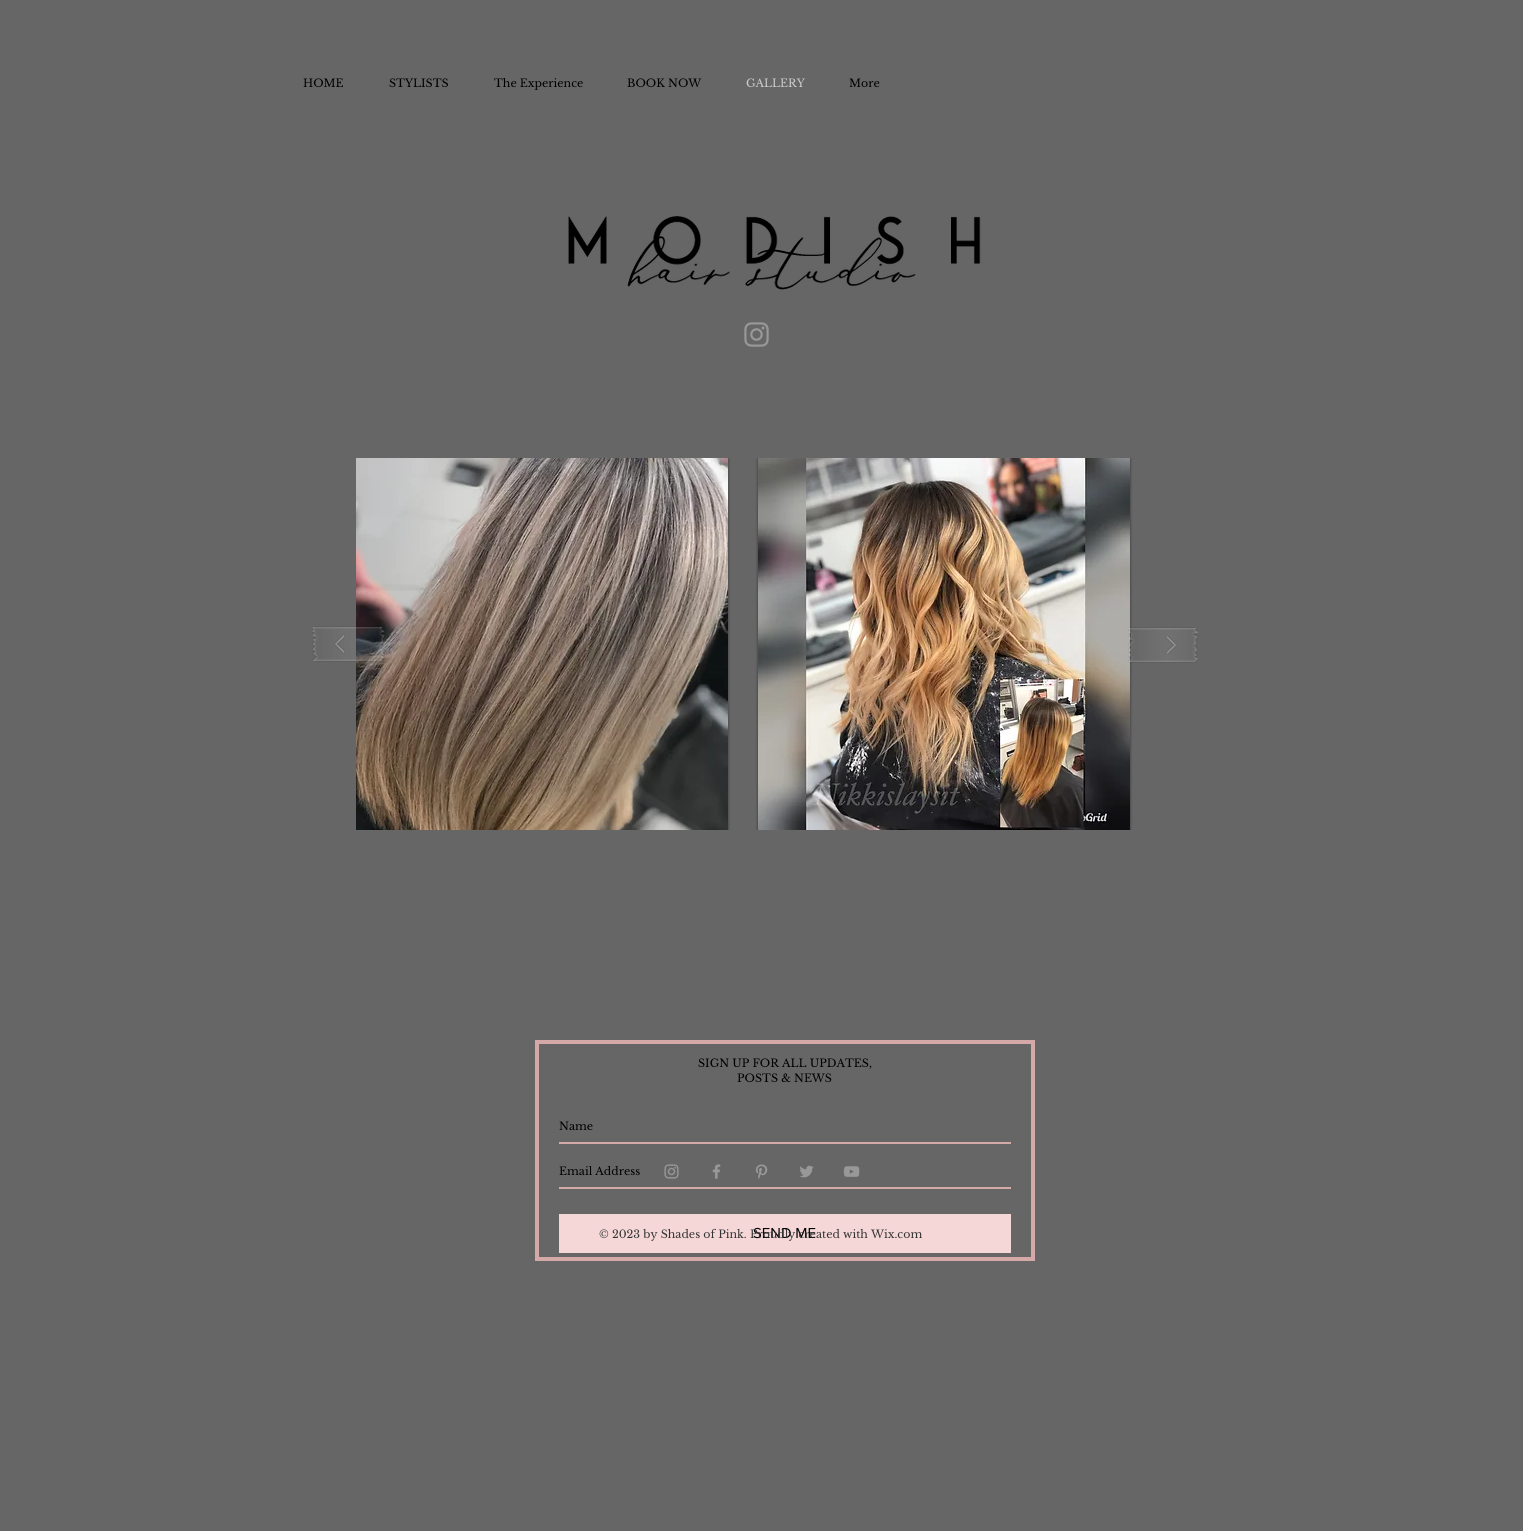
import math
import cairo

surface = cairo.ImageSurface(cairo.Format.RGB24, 1523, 1531)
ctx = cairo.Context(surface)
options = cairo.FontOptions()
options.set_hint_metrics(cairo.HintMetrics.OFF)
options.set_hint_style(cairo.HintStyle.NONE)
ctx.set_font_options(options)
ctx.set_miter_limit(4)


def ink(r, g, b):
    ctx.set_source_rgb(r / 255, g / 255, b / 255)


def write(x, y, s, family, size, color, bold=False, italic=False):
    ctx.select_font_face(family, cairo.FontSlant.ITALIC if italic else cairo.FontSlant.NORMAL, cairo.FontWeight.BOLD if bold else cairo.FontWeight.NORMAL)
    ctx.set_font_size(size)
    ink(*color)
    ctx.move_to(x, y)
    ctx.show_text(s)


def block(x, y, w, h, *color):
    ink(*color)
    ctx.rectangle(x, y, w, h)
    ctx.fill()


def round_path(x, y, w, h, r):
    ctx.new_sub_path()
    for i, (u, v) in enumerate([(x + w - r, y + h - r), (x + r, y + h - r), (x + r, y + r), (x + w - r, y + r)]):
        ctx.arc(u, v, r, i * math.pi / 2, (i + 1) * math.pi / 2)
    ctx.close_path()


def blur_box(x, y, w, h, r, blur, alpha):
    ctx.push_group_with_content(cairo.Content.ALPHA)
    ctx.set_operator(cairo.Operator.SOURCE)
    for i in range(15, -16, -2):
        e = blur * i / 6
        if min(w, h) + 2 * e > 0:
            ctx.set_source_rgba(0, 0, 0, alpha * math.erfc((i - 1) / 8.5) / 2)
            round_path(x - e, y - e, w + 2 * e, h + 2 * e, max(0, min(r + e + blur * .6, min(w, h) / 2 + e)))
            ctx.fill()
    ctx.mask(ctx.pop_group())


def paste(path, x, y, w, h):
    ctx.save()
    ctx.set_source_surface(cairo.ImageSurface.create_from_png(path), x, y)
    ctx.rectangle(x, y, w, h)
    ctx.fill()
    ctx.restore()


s1 = dict(family="Libre Baskerville", size=11, color=(0, 0, 0))
s2 = dict(family="Libre Baskerville", size=11, color=(204, 204, 204))
s3 = dict(family="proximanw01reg", size=15, color=(0, 0, 0))
s4 = dict(family="Libre Baskerville", size=11, color=(51, 51, 51))

ink(102, 102, 102)
ctx.paint()
write(303, 87, "HOME", **s1)
write(389, 87, "STYLISTS", **s1)
write(494, 87, "The Experience", **s1)
write(627, 87, "BOOK NOW", **s1)
write(746, 87, "GALLERY", **s2)
write(849, 87, "More", **s1)
paste("pic1.png", 568, 216, 413, 74)
paste("pic2.png", 744, 322, 25, 25)
ctx.save()
ctx.rectangle(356, 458, 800, 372)
ctx.clip()
ink(0, 0, 0)
blur_box(356, 459, 372, 372, 0, 1.5, 0.5)
ctx.restore()
paste("pic4.png", 356, 458, 372, 372)
paste("pic3.png", 312, 626, 73, 36)
ctx.save()
ctx.rectangle(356, 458, 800, 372)
ctx.clip()
ink(0, 0, 0)
blur_box(758, 459, 372, 372, 0, 1.5, 0.5)
ctx.restore()
paste("pic5.png", 758, 458, 372, 372)
paste("pic6.png", 1128, 627, 70, 36)
ctx.rectangle(537, 1042, 496, 217)
ink(214, 169, 169)
ctx.set_line_width(4)
ctx.stroke()
write(698, 1067, "SIGN UP FOR ALL UPDATES,", **s1)
write(737, 1082, "POSTS & NEWS", **s1)
block(559, 1142, 452, 2, 214, 169, 169)
write(559, 1130, "Name", **s1)
block(559, 1187, 452, 2, 214, 169, 169)
write(559, 1175, "Email Address", **s1)
block(559, 1214, 452, 39, 245, 215, 215)
write(753, 1238, "SEND ME", **s3)
paste("pic7.png", 664, 1164, 15, 15)
paste("pic8.png", 712, 1164, 9, 15)
paste("pic9.png", 755, 1164, 13, 15)
paste("pic10.png", 799, 1165, 15, 13)
paste("pic11.png", 843, 1166, 17, 11)
write(599, 1238, "© 2023 by Shades of Pink. Proudly created with Wix.com", **s4)
surface.write_to_png("screenshot.png")
